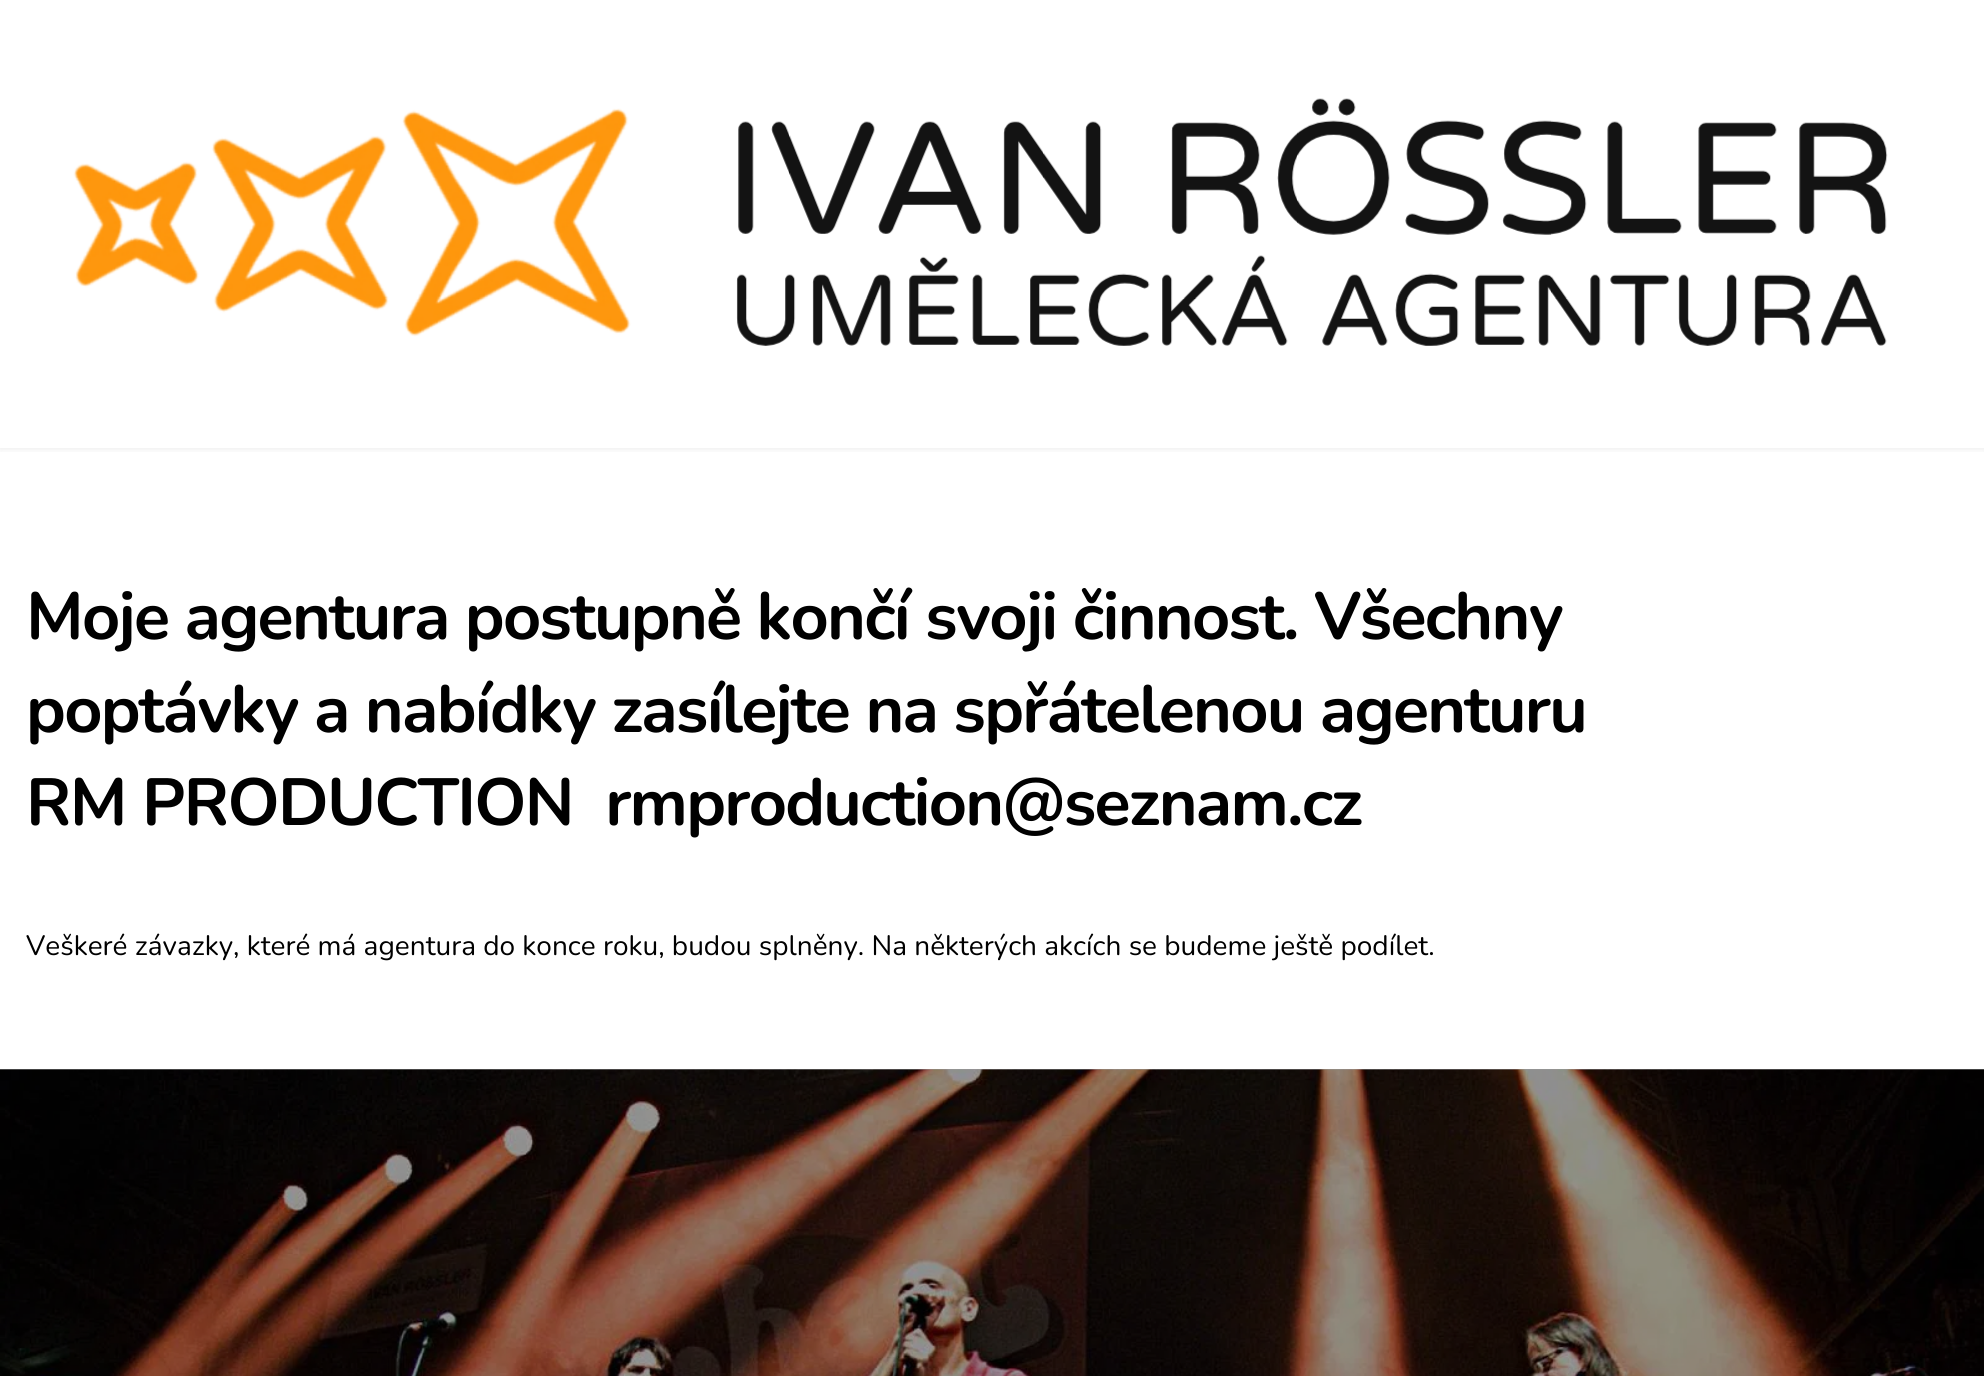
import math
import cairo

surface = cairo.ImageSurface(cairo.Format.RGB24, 1984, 1376)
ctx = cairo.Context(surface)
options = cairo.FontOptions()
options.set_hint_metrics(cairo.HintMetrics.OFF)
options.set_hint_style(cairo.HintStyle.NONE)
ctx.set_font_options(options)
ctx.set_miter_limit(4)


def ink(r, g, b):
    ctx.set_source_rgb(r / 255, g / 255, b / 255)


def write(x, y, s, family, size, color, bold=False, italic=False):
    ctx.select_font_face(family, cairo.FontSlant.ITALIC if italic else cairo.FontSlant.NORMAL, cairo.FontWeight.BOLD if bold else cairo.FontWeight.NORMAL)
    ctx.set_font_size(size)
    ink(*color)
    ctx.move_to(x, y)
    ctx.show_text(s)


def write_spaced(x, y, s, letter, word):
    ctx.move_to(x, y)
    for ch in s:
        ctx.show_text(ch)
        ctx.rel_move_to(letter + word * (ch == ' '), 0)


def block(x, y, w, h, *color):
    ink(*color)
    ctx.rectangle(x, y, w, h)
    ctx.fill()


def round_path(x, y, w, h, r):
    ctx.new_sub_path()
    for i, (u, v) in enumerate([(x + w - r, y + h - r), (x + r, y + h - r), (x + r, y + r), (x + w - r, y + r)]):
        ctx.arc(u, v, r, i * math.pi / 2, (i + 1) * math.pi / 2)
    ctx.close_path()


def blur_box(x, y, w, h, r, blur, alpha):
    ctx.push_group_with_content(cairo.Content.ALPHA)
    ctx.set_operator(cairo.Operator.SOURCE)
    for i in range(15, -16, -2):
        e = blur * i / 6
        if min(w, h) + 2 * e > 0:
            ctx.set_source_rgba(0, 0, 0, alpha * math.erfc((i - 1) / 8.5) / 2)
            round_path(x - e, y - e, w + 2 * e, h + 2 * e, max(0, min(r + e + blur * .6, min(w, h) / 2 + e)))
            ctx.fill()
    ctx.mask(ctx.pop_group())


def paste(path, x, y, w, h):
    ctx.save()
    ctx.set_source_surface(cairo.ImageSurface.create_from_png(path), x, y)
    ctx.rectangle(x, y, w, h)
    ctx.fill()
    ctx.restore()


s1 = dict(family="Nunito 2 ExtraLight", size=28, color=(0, 0, 0))

ink(255, 255, 255)
ctx.paint()
block(0, 1069, 1984, 1, 153, 153, 153)
ctx.save()
ctx.rectangle(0, 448, 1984, 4)
ctx.clip()
ink(0, 0, 0)
blur_box(0, 0, 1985, 448, 0, 4.5, 0.1)
ctx.restore()
paste("pic1.png", 73, 98, 1815, 248)
ctx.select_font_face("Nunito ExtraLight")
ctx.set_font_size(66.5)
ink(0, 0, 0)
write_spaced(26, 639, "Moje agentura postupně končí svoji činnost. Všechny", -1.75, 0)
write_spaced(26, 732, "poptávky a nabídky zasílejte na spřátelenou agenturu", -1.75, 0)
write_spaced(26, 825, "RM PRODUCTION  rmproduction@seznam.cz", -1.75, 0)
write(26, 955, "Veškeré závazky, které má agentura do konce roku, budou splněny. Na některých akcích se budeme ještě podílet.", **s1)
paste("pic2.png", 0, 1069, 1984, 307)
surface.write_to_png("screenshot.png")
